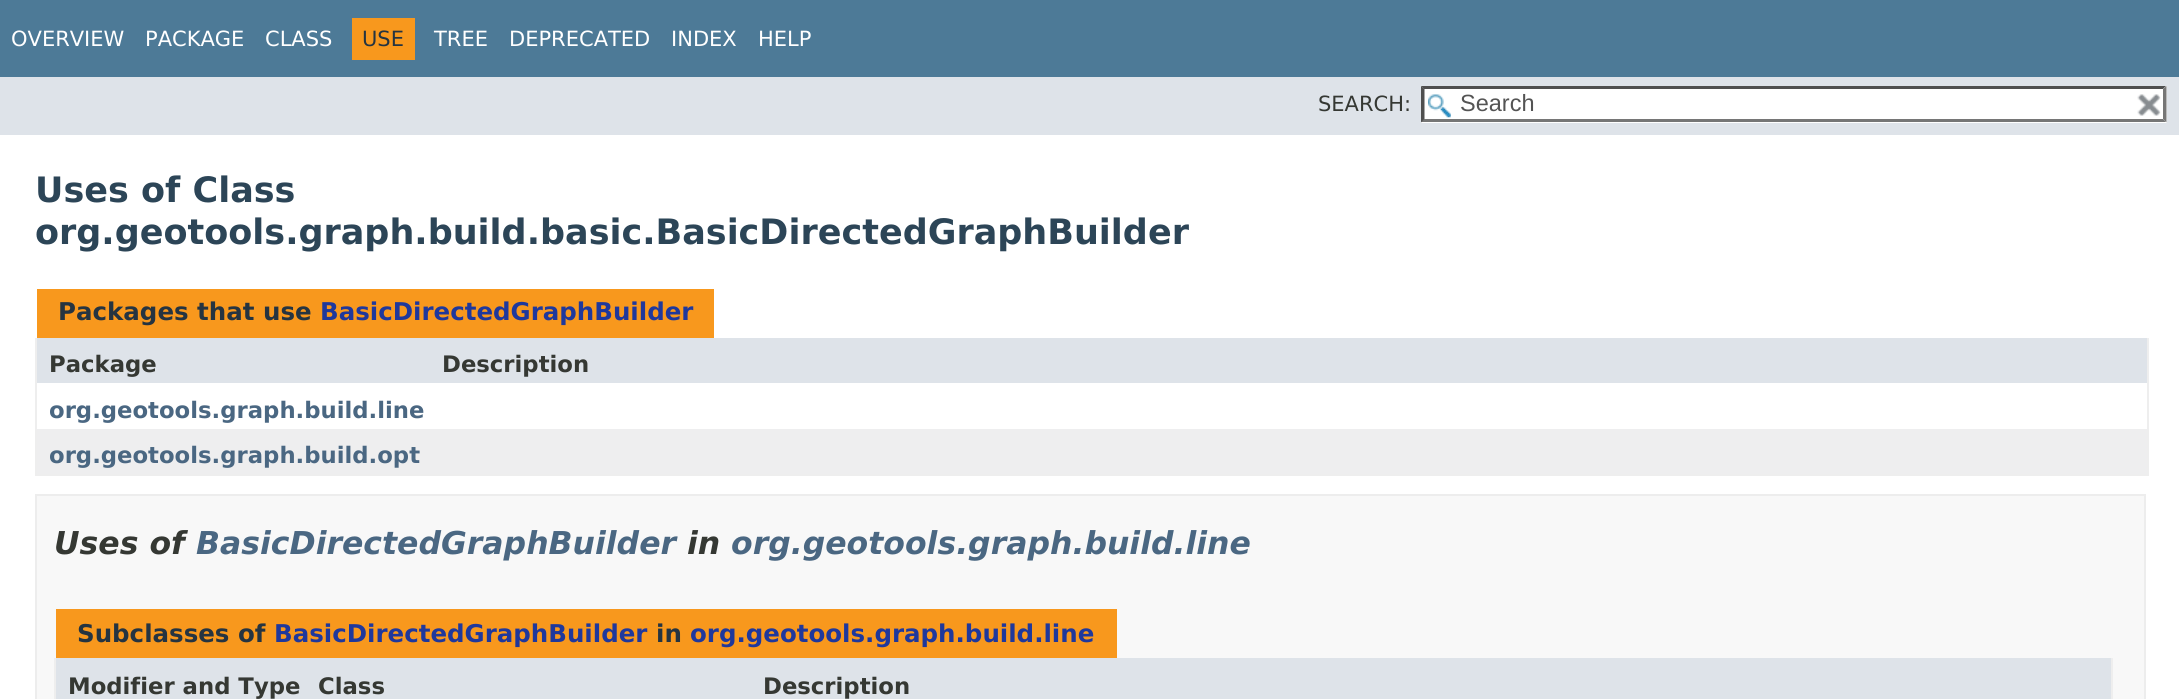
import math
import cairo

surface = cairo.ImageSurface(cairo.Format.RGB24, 2179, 699)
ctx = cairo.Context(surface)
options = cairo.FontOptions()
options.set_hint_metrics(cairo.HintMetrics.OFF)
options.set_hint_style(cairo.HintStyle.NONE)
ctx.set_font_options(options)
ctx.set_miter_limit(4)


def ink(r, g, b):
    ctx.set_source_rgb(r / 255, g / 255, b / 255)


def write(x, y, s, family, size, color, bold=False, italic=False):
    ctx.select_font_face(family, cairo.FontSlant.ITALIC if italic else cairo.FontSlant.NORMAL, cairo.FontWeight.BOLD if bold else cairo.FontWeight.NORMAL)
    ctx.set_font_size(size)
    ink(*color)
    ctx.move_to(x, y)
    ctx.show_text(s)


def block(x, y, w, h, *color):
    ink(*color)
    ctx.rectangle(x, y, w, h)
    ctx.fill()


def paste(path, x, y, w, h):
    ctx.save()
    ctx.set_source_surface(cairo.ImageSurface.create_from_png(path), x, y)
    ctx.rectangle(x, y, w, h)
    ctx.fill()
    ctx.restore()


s1 = dict(family="DejaVu Sans", size=21, color=(255, 255, 255))
s2 = dict(family="DejaVu Sans", size=21, color=(37, 52, 65))
s3 = dict(family="DejaVu Sans", size=21, color=(53, 56, 51))
s4 = dict(family="Liberation Sans", size=23.5, color=(84, 84, 84))
s5 = dict(family="DejaVu Sans", size=35, color=(44, 69, 87), bold=True)
s6 = dict(family="DejaVu Sans", size=24.5, color=(37, 52, 65), bold=True)
s7 = dict(family="DejaVu Sans", size=24.5, color=(31, 56, 156), bold=True)
s8 = dict(family="DejaVu Sans", size=22.75, color=(53, 56, 51), bold=True)
s9 = dict(family="DejaVu Sans", size=22.75, color=(74, 103, 130), bold=True)
s10 = dict(family="DejaVu Sans", size=31.5, color=(53, 56, 51), bold=True, italic=True)
s11 = dict(family="DejaVu Sans", size=31.5, color=(74, 103, 130), bold=True, italic=True)

ink(255, 255, 255)
ctx.paint()
block(0, 0, 2179, 77, 77, 122, 151)
write(11, 46, "OVERVIEW", **s1)
write(145, 46, "PACKAGE", **s1)
write(265, 46, "CLASS", **s1)
block(352, 18, 63, 42, 248, 152, 29)
write(362, 46, "USE", **s2)
write(434, 46, "TREE", **s1)
write(509, 46, "DEPRECATED", **s1)
write(671, 46, "INDEX", **s1)
write(758, 46, "HELP", **s1)
block(0, 77, 2179, 58, 222, 227, 233)
write(1318, 111, "SEARCH:", **s3)
block(1421, 86, 746, 37, 255, 255, 255)
paste("pic1.png", 1428, 94, 23, 24)
ink(79, 79, 79)
ctx.new_path()
ctx.move_to(1421, 86)
ctx.line_to(2166, 86)
ctx.line_to(2163, 89)
ctx.line_to(1424, 89)
ctx.close_path()
ctx.fill()
ink(118, 118, 118)
ctx.new_path()
ctx.move_to(2166.5, 86)
ctx.line_to(2166.5, 122.5)
ctx.line_to(2163, 119)
ctx.line_to(2163, 89)
ctx.close_path()
ctx.fill()
ctx.new_path()
ctx.move_to(2166, 122)
ctx.line_to(1421, 122)
ctx.line_to(1424, 119)
ctx.line_to(2163, 119)
ctx.close_path()
ctx.fill()
ink(79, 79, 79)
ctx.new_path()
ctx.move_to(1421, 122.5)
ctx.line_to(1421, 86)
ctx.line_to(1424.5, 89)
ctx.line_to(1424.5, 119)
ctx.close_path()
ctx.fill()
write(1460, 111, "Search", **s4)
paste("pic2.png", 2137, 94, 24, 22)
write(35, 202, "Uses of Class", **s5)
write(35, 244, "org.geotools.graph.build.basic.BasicDirectedGraphBuilder", **s5)
block(37, 289, 677, 49, 248, 152, 29)
write(58, 320, "Packages that use", **s6)
write(320, 320, "BasicDirectedGraphBuilder", **s7)
block(2147, 338, 2, 138, 238, 238, 238)
block(35, 474, 2114, 2, 238, 238, 238)
block(35, 338, 2, 138, 238, 238, 238)
block(37, 338, 2110, 45, 222, 227, 233)
write(49, 372, "Package", **s8)
write(442, 372, "Description", **s8)
write(49, 418, "org.geotools.graph.build.line", **s9)
block(37, 429, 2110, 45, 238, 238, 239)
write(49, 463, "org.geotools.graph.build.opt", **s9)
ink(248, 248, 248)
ctx.rectangle(36, 495, 2109, 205)
ctx.fill_preserve()
ink(237, 237, 237)
ctx.stroke()
write(54, 554, "Uses of", **s10)
write(196, 554, "BasicDirectedGraphBuilder", **s11)
write(687, 554, "in", **s10)
write(731, 554, "org.geotools.graph.build.line", **s11)
block(56, 609, 1061, 49, 248, 152, 29)
write(77, 642, "Subclasses of", **s6)
write(274, 642, "BasicDirectedGraphBuilder", **s7)
write(656, 642, "in", **s6)
write(690, 642, "org.geotools.graph.build.line", **s7)
block(2111, 658, 2, 41, 238, 238, 238)
block(54, 658, 2, 41, 238, 238, 238)
block(56, 658, 695, 41, 222, 227, 233)
write(68, 694, "Modifier and Type", **s8)
write(318, 694, "Class", **s8)
block(751, 658, 1360, 41, 222, 227, 233)
write(763, 694, "Description", **s8)
surface.write_to_png("screenshot.png")
